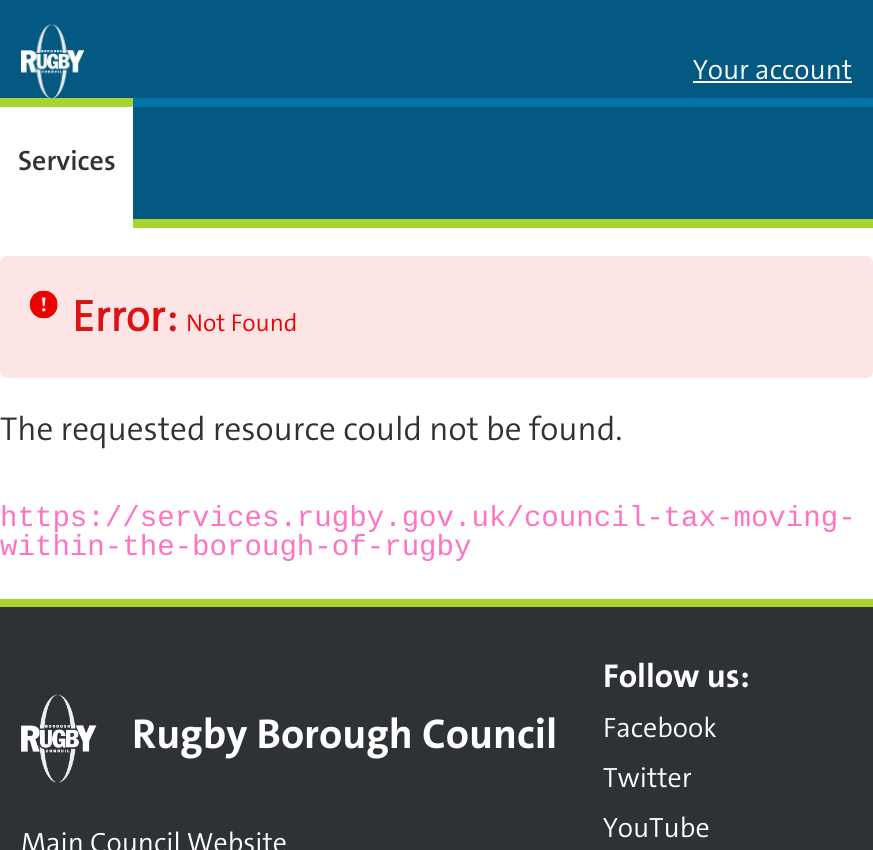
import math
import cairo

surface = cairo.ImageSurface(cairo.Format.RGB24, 873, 850)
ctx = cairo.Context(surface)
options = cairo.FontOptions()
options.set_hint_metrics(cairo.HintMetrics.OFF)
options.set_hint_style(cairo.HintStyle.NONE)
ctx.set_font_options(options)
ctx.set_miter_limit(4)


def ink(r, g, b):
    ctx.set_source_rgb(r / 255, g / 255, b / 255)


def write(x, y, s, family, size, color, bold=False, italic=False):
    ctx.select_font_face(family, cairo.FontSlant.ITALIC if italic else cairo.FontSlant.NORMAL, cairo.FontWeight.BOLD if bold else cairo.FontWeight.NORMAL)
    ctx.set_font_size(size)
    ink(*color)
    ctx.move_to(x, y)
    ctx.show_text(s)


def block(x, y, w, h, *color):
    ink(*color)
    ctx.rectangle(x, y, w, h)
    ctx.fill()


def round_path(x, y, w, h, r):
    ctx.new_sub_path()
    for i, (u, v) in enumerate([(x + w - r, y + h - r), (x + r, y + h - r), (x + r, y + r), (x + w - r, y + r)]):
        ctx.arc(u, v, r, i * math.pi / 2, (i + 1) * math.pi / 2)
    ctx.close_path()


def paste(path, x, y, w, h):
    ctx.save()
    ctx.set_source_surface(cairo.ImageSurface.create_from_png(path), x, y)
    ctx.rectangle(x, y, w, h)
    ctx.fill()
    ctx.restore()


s1 = dict(family="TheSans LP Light", size=28, color=(255, 255, 255))
s2 = dict(family="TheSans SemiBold", size=28, color=(46, 49, 54))
s3 = dict(family="TheSans LP", size=44, color=(218, 20, 20), bold=True)
s4 = dict(family="TheSans LP Light", size=24.5, color=(234, 1, 0))
s5 = dict(family="TheSans LP Light", size=33.25, color=(46, 49, 54))
s6 = dict(family="Liberation Mono", size=29.1, color=(255, 115, 195))
s7 = dict(family="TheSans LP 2", size=42, color=(255, 255, 255), bold=True)
s8 = dict(family="TheSans LP 2", size=33.25, color=(255, 255, 255), bold=True)

ink(255, 255, 255)
ctx.paint()
block(0, 0, 873, 219, 3, 89, 130)
block(133, 219, 740, 9, 168, 212, 48)
paste("pic1.png", 21, 24, 63, 74)
write(693, 79, "Your account", **s1)
block(693, 81, 159, 2, 255, 255, 255)
block(133, 98, 740, 9, 3, 115, 168)
block(0, 107, 133, 112, 255, 255, 255)
block(0, 98, 133, 9, 168, 212, 48)
write(18, 170, "Services", **s2)
ink(253, 229, 229)
round_path(1, 257, 871, 120, 6)
ctx.fill_preserve()
ctx.stroke()
paste("pic2.png", 30, 290, 28, 29)
write(72, 331, "Error:", **s3)
write(186, 331, "Not Found", **s4)
write(0, 440, "The requested resource could not be found.", **s5)
write(0, 526, "https://services.rugby.gov.uk/council-tax-moving-", **s6)
write(0, 555, "within-the-borough-of-rugby", **s6)
block(0, 607, 873, 243, 46, 49, 54)
block(0, 599, 873, 8, 168, 212, 48)
paste("pic3.png", 21, 694, 76, 89)
write(132, 748, "Rugby Borough Council", **s7)
write(21, 852, "Main Council Website", **s1)
write(603, 687, "Follow us:", **s8)
write(603, 737, "Facebook", **s1)
write(603, 787, "Twitter", **s1)
write(603, 837, "YouTube", **s1)
surface.write_to_png("screenshot.png")
